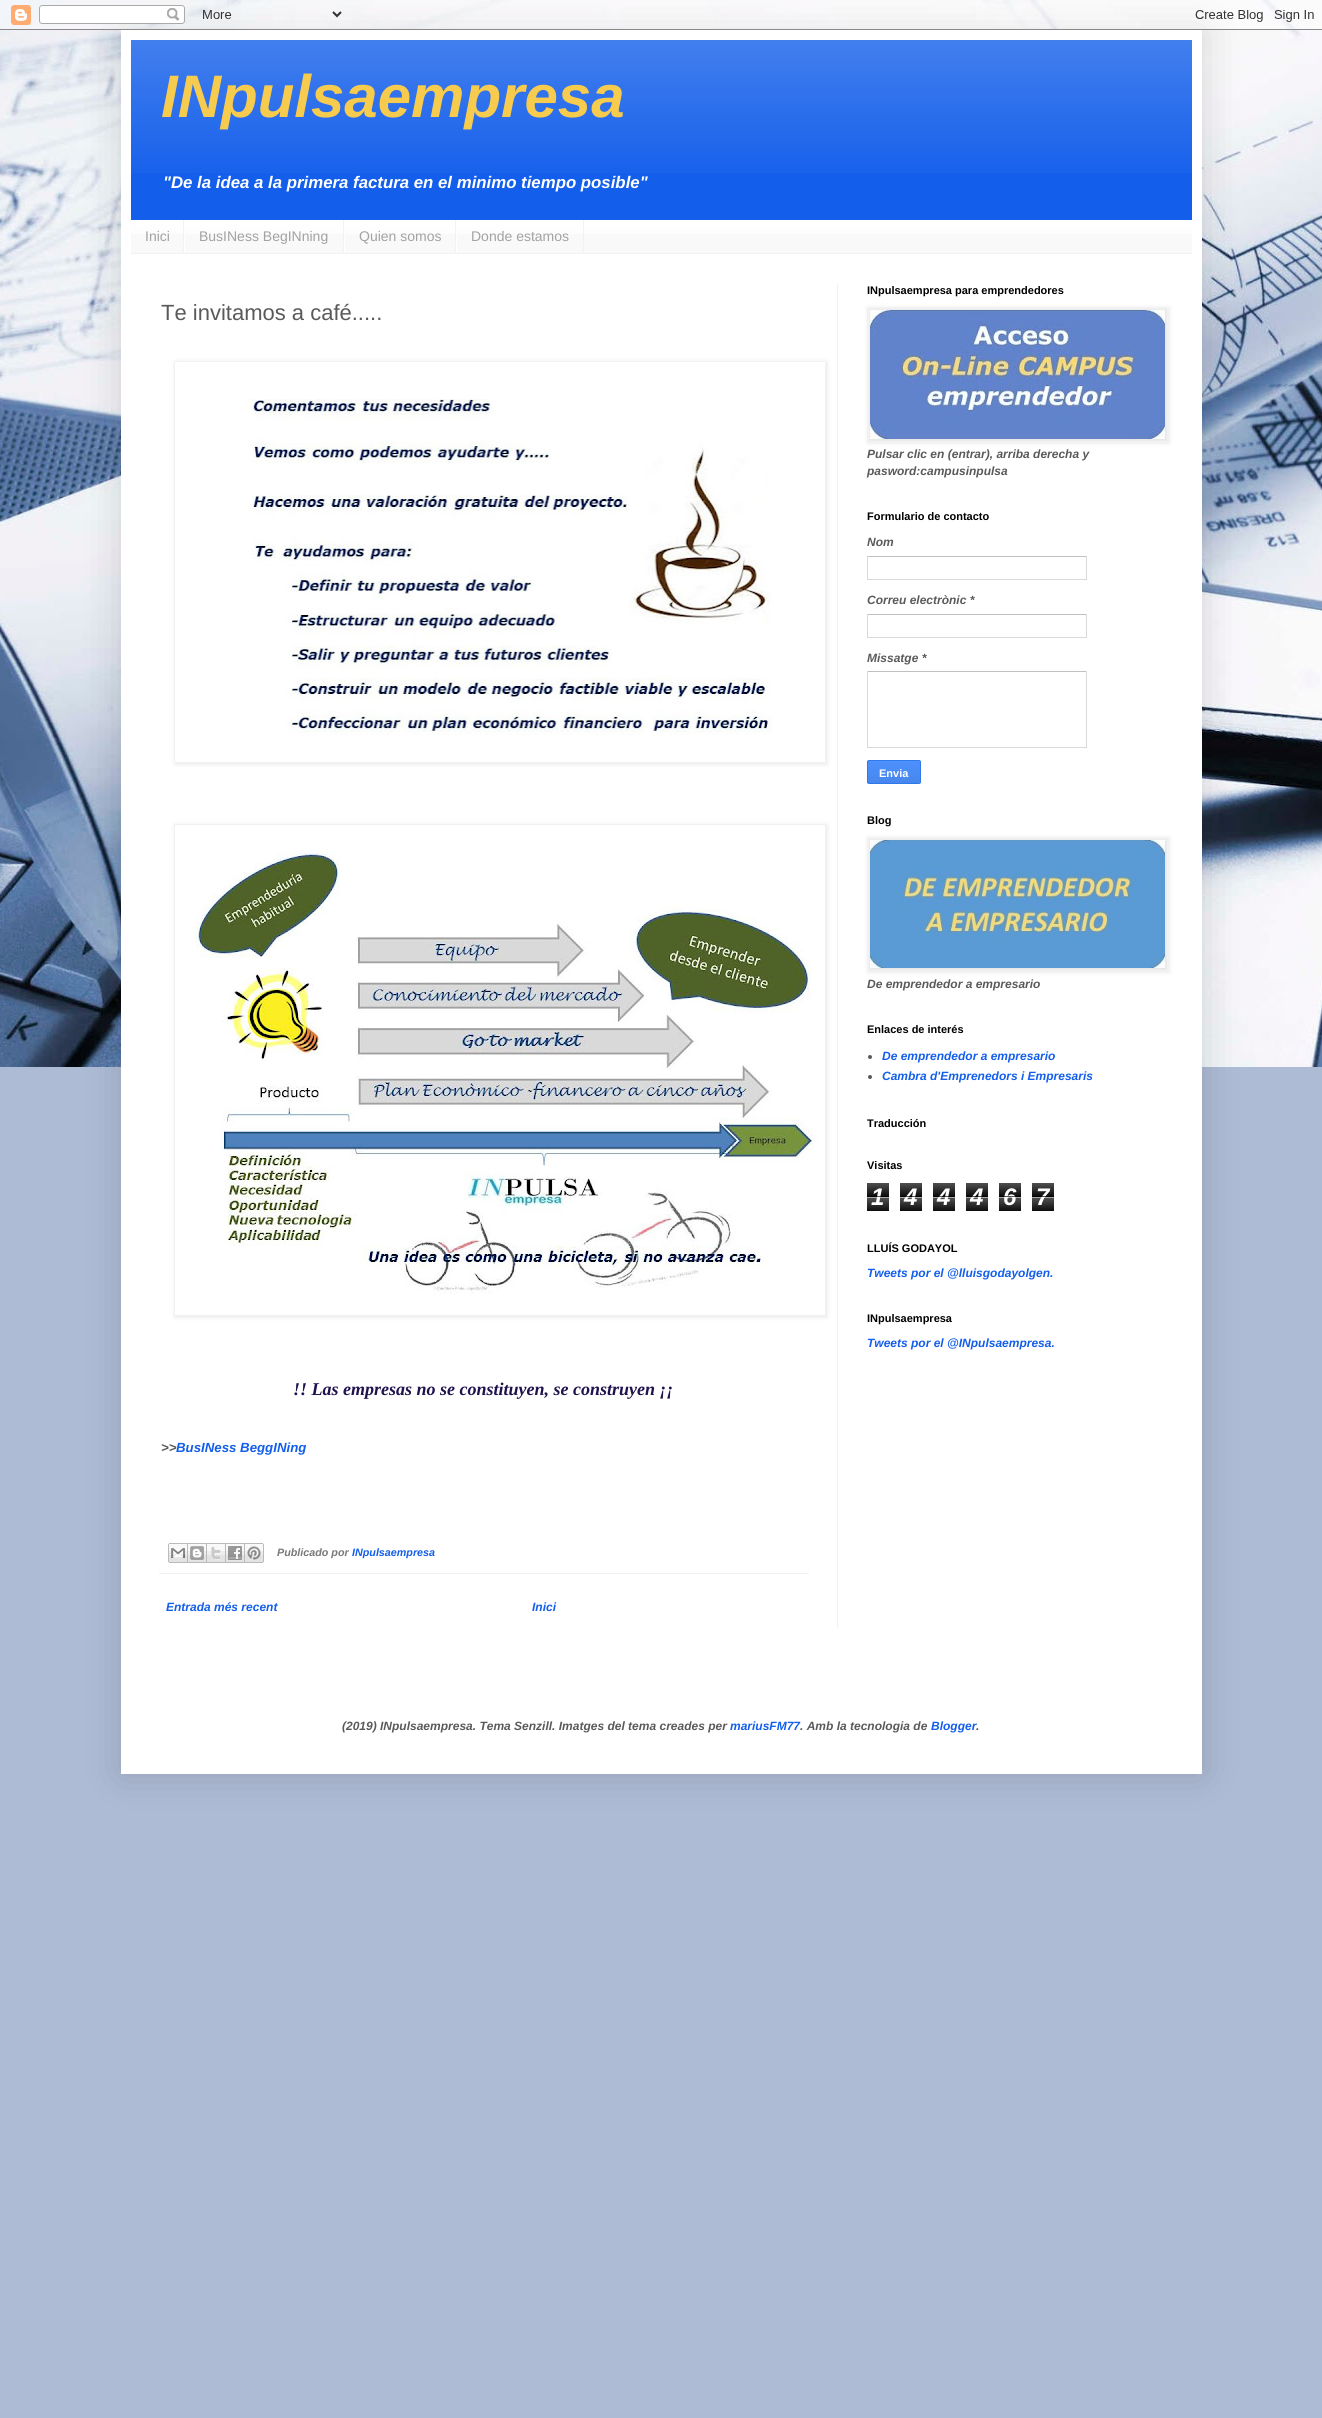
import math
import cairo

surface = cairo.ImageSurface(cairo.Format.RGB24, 1322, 2418)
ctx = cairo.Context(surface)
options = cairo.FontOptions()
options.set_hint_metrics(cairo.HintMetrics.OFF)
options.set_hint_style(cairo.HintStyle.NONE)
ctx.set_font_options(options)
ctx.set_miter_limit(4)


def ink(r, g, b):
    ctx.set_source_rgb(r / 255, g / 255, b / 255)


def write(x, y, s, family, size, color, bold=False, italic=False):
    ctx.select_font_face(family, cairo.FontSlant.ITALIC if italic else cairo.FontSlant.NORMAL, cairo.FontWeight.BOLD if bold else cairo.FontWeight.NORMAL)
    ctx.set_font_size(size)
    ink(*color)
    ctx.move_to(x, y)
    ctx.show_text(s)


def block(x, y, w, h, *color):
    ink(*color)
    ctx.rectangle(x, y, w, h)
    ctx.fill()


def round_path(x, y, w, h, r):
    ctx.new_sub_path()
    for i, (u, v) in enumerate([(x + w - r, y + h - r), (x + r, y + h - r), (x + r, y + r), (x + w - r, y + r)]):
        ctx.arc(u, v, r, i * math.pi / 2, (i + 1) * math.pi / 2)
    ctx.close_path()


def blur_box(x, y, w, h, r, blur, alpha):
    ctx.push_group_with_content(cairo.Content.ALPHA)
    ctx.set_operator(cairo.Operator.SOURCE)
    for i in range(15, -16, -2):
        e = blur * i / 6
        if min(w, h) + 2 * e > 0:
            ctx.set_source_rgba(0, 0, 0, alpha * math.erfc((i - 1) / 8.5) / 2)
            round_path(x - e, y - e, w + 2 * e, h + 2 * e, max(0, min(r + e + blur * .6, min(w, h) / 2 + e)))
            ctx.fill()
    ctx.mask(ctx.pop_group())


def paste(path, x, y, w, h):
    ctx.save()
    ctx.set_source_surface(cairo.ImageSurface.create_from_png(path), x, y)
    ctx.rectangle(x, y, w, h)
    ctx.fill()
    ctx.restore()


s1 = dict(family="Liberation Sans", size=60, color=(247, 203, 77), bold=True, italic=True)
s2 = dict(family="Liberation Sans", size=16.8, color=(255, 255, 255), bold=True, italic=True)
s3 = dict(family="Liberation Sans", size=14, color=(162, 162, 162))
s4 = dict(family="Liberation Sans", size=22, color=(90, 90, 90))
s5 = dict(family="Liberation Serif", size=18, color=(32, 18, 77), bold=True, italic=True)
s6 = dict(family="Liberation Sans", size=13.25, color=(90, 90, 90), bold=True, italic=True)
s7 = dict(family="Liberation Sans", size=13.25, color=(19, 94, 234), bold=True, italic=True)
s8 = dict(family="Liberation Sans", size=10.75, color=(120, 120, 120), bold=True, italic=True)
s9 = dict(family="Liberation Sans", size=10.75, color=(19, 94, 234), bold=True, italic=True)
s10 = dict(family="Liberation Sans", size=12, color=(19, 94, 234), bold=True, italic=True)
s11 = dict(family="Liberation Sans", size=11, color=(0, 0, 0), bold=True)
s12 = dict(family="Liberation Sans", size=12, color=(90, 90, 90), bold=True, italic=True)
s13 = dict(family="Liberation Sans", size=11, color=(255, 255, 255), bold=True)
s14 = dict(family="Liberation Sans", size=24, color=(255, 255, 255), bold=True, italic=True)

ink(173, 187, 213)
ctx.paint()
paste("pic1.png", 0, 0, 1322, 1067)
ink(0, 0, 0)
blur_box(121, 30, 1081, 1744, 0, 20, 0.15)
paste("pic2.png", 0, 0, 1322, 30)
block(121, 30, 1081, 1744, 255, 255, 255)
block(131, 40, 1061, 180, 19, 94, 234)
paste("pic3.png", 131, 40, 1061, 133)
write(161, 117, "INpulsaempresa", **s1)
write(163, 188, "\"De la idea a la primera factura en el minimo tiempo posible\"", **s2)
block(131, 221, 1061, 32, 249, 249, 249)
paste("pic4.png", 131, 220, 1061, 14)
block(131, 253, 1061, 1, 242, 242, 242)
block(183, 220, 1, 33, 242, 242, 242)
write(145, 241, "Inici", **s3)
block(343, 220, 1, 33, 242, 242, 242)
block(184, 234, 1, 19, 255, 255, 255)
write(199, 241, "BusINess BegINning", **s3)
block(455, 220, 1, 33, 242, 242, 242)
block(344, 234, 1, 19, 255, 255, 255)
write(359, 241, "Quien somos", **s3)
block(583, 220, 1, 33, 242, 242, 242)
block(456, 234, 1, 19, 255, 255, 255)
write(471, 241, "Donde estamos", **s3)
block(837, 284, 1, 1344, 242, 242, 242)
write(161, 320, "Te invitamos a café.....", **s4)
ctx.save()
ctx.set_fill_rule(cairo.FillRule.EVEN_ODD)
ctx.new_path()
ctx.move_to(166, 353)
ctx.line_to(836, 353)
ctx.line_to(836, 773)
ctx.line_to(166, 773)
ctx.close_path()
ctx.move_to(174, 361)
ctx.line_to(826, 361)
ctx.line_to(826, 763)
ctx.line_to(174, 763)
ctx.close_path()
ctx.clip()
ink(0, 0, 0)
blur_box(175, 362, 652, 402, 0, 2.5, 0.1)
ctx.restore()
ctx.rectangle(174.5, 361.5, 651, 401)
ink(242, 242, 242)
ctx.set_line_width(1)
ctx.stroke()
paste("pic5.png", 246, 399, 527, 336)
ctx.save()
ctx.set_fill_rule(cairo.FillRule.EVEN_ODD)
ctx.new_path()
ctx.move_to(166, 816)
ctx.line_to(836, 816)
ctx.line_to(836, 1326)
ctx.line_to(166, 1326)
ctx.close_path()
ctx.move_to(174, 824)
ctx.line_to(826, 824)
ctx.line_to(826, 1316)
ctx.line_to(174, 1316)
ctx.close_path()
ctx.clip()
ink(0, 0, 0)
blur_box(175, 825, 652, 492, 0, 2.5, 0.1)
ctx.restore()
ctx.rectangle(174.5, 824.5, 651, 491)
ctx.stroke()
paste("pic6.png", 194, 850, 626, 444)
write(293, 1395, "!! Las empresas no se constituyen, se construyen ¡¡", **s5)
write(161, 1452, ">>", **s6)
write(176, 1452, "BusINess BeggINing", **s7)
block(159, 1573, 650, 1, 242, 242, 242)
paste("pic7.png", 168, 1543, 20, 20)
paste("pic8.png", 188, 1543, 19, 20)
paste("pic9.png", 207, 1543, 19, 20)
paste("pic10.png", 226, 1543, 19, 20)
paste("pic11.png", 245, 1543, 19, 20)
write(277, 1556, "Publicado por", **s8)
write(352, 1556, "INpulsaempresa", **s9)
write(166, 1611, "Entrada més recent", **s10)
write(532, 1611, "Inici", **s10)
write(867, 294, "INpulsaempresa para emprendedores", **s11)
ink(0, 0, 0)
blur_box(868, 308, 301, 135, 0, 2.5, 0.1)
ctx.rectangle(867.5, 307.5, 300, 134)
ink(242, 242, 242)
ctx.stroke()
paste("pic12.png", 870, 310, 295, 129)
write(867, 458, "Pulsar clic en (entrar), arriba derecha y", **s12)
write(867, 475, "pasword:campusinpulsa", **s12)
write(867, 520, "Formulario de contacto", **s11)
write(867, 546, "Nom", **s12)
block(867, 556, 220, 1, 192, 192, 192)
block(1086, 556, 1, 24, 217, 217, 217)
block(867, 579, 220, 1, 217, 217, 217)
block(867, 556, 1, 24, 217, 217, 217)
write(867, 604, "Correu electrònic *", **s12)
block(867, 614, 220, 1, 192, 192, 192)
block(1086, 614, 1, 24, 217, 217, 217)
block(867, 637, 220, 1, 217, 217, 217)
block(867, 614, 1, 24, 217, 217, 217)
write(867, 662, "Missatge *", **s12)
block(867, 671, 220, 1, 192, 192, 192)
block(1086, 671, 1, 77, 217, 217, 217)
block(867, 747, 220, 1, 217, 217, 217)
block(867, 671, 1, 77, 217, 217, 217)
ctx.save()
round_path(867, 760, 54, 24, 2)
ctx.clip()
gradient = cairo.LinearGradient(894, 761, 894, 783)
gradient.add_color_stop_rgba(0, 0.302, 0.565, 0.996, 1)
gradient.add_color_stop_rgba(1, 0.278, 0.529, 0.929, 1)
ctx.set_source(gradient)
ctx.rectangle(867, 761, 54, 22)
ctx.fill()
ctx.restore()
round_path(867.5, 760.5, 53, 23, 1.5)
ink(48, 121, 237)
ctx.stroke()
write(879, 777, "Envia", **s13)
write(867, 824, "Blog", **s11)
ink(0, 0, 0)
blur_box(868, 838, 301, 134, 0, 2.5, 0.1)
ctx.rectangle(867.5, 837.5, 300, 133)
ink(242, 242, 242)
ctx.stroke()
paste("pic13.png", 870, 840, 295, 128)
write(867, 988, "De emprendedor a empresario", **s12)
write(867, 1033, "Enlaces de interés", **s11)
ink(90, 90, 90)
ctx.new_path()
ctx.arc(870, 1057, 2, 0, 2 * math.pi)
ctx.fill()
write(882, 1060, "De emprendedor a empresario", **s10)
ink(90, 90, 90)
ctx.new_path()
ctx.arc(870, 1077, 2, 0, 2 * math.pi)
ctx.fill()
write(882, 1080, "Cambra d'Emprenedors i Empresaris", **s10)
write(867, 1127, "Traducción", **s11)
write(867, 1169, "Visitas", **s11)
paste("pic14.png", 867, 1183, 22, 28)
write(871, 1205, "1", **s14)
ctx.set_source_rgba(0, 0, 0, 0.65)
ctx.rectangle(867, 1196, 22, 1)
ctx.fill()
ctx.set_source_rgba(1, 1, 1, 0.65)
ctx.rectangle(867, 1197, 22, 1)
ctx.fill()
paste("pic14.png", 900, 1183, 22, 28)
write(904, 1205, "4", **s14)
ctx.set_source_rgba(0, 0, 0, 0.65)
ctx.rectangle(900, 1196, 22, 1)
ctx.fill()
ctx.set_source_rgba(1, 1, 1, 0.65)
ctx.rectangle(900, 1197, 22, 1)
ctx.fill()
paste("pic14.png", 933, 1183, 22, 28)
write(937, 1205, "4", **s14)
ctx.set_source_rgba(0, 0, 0, 0.65)
ctx.rectangle(933, 1196, 22, 1)
ctx.fill()
ctx.set_source_rgba(1, 1, 1, 0.65)
ctx.rectangle(933, 1197, 22, 1)
ctx.fill()
paste("pic14.png", 966, 1183, 22, 28)
write(970, 1205, "4", **s14)
ctx.set_source_rgba(0, 0, 0, 0.65)
ctx.rectangle(966, 1196, 22, 1)
ctx.fill()
ctx.set_source_rgba(1, 1, 1, 0.65)
ctx.rectangle(966, 1197, 22, 1)
ctx.fill()
paste("pic14.png", 999, 1183, 22, 28)
write(1003, 1205, "6", **s14)
ctx.set_source_rgba(0, 0, 0, 0.65)
ctx.rectangle(999, 1196, 22, 1)
ctx.fill()
ctx.set_source_rgba(1, 1, 1, 0.65)
ctx.rectangle(999, 1197, 22, 1)
ctx.fill()
paste("pic14.png", 1032, 1183, 22, 28)
write(1036, 1205, "7", **s14)
ctx.set_source_rgba(0, 0, 0, 0.65)
ctx.rectangle(1032, 1196, 22, 1)
ctx.fill()
ctx.set_source_rgba(1, 1, 1, 0.65)
ctx.rectangle(1032, 1197, 22, 1)
ctx.fill()
write(867, 1252, "LLUÍS GODAYOL", **s11)
write(867, 1277, "Tweets por el @lluisgodayolgen.", **s10)
write(867, 1322, "INpulsaempresa", **s11)
write(867, 1347, "Tweets por el @INpulsaempresa.", **s10)
write(342, 1730, "(2019) INpulsaempresa. Tema Senzill. Imatges del tema creades per", **s12)
write(730, 1730, "mariusFM77", **s10)
write(800, 1730, ". Amb la tecnologia de", **s12)
write(931, 1730, "Blogger", **s10)
write(976, 1730, ".", **s12)
surface.write_to_png("screenshot.png")
